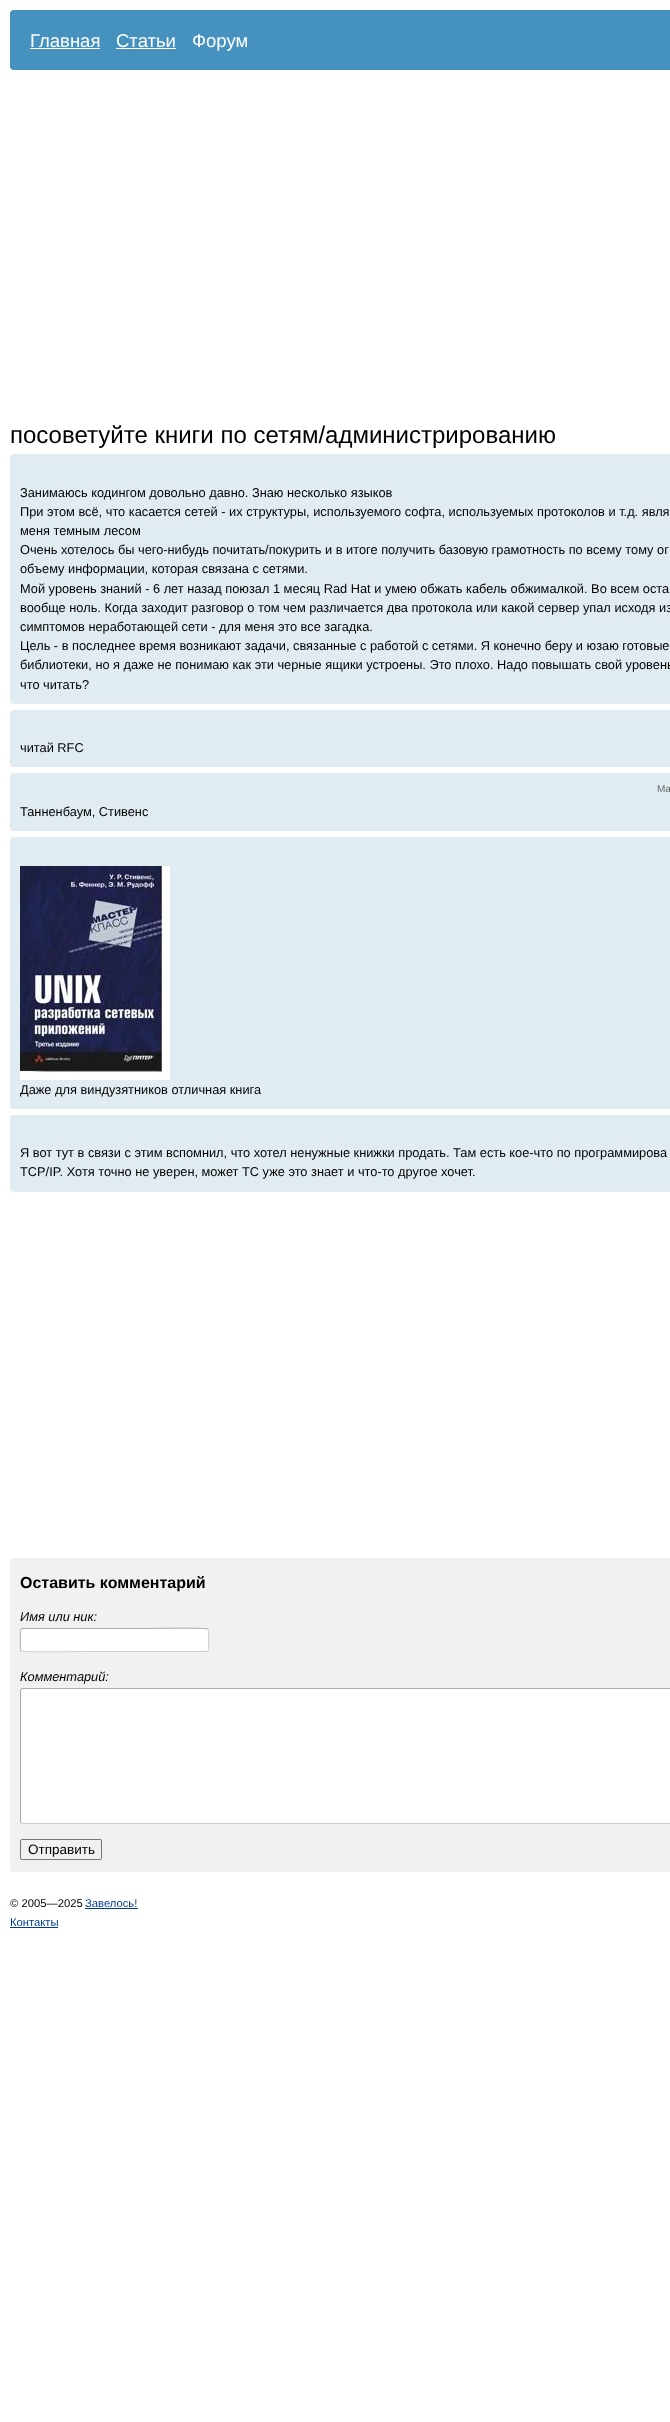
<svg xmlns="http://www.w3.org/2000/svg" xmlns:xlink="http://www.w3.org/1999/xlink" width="670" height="2422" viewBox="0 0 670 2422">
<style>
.cls-1{font:18.5px Liberation Sans;fill:#ffffff}
.cls-2{font:24px Liberation Sans;fill:#000000}
.cls-3{font:12.8px Liberation Sans;fill:#000000}
.cls-4{font:10px Liberation Sans;fill:#666666}
.cls-5{font:bold 16px Liberation Sans;fill:#000000}
.cls-6{font:italic 12.8px Liberation Sans;fill:#000000}
.cls-7{font:13.5px Liberation Sans;fill:#000000}
.cls-8{font:11.25px Liberation Sans;fill:#000000}
.cls-9{font:11.25px Liberation Sans;fill:#013d95}
</style>
<rect width="100%" height="100%" fill="#ffffff"/>
<rect fill="#4692bf" x="10" y="10" width="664" height="60" rx="4"/>
<rect fill="#ffffff" x="30" y="48" width="70" height="1"/>
<rect fill="#ffffff" x="116" y="48" width="60" height="1"/>
<rect fill="#e1ebf2" x="10" y="454" width="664" height="250" rx="4"/>
<rect fill="#e1ebf2" x="10" y="710" width="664" height="57" rx="4"/>
<rect fill="#e1ebf2" x="10" y="773" width="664" height="58" rx="4"/>
<rect fill="#e1ebf2" x="10" y="837" width="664" height="272" rx="4"/>
<image xlink:href="image0.png" x="20" y="866" width="150" height="214"/>
<rect fill="#e1ebf2" x="10" y="1115" width="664" height="77" rx="4"/>
<rect fill="#f1f1f1" x="10" y="1558" width="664" height="314" rx="4"/>
<rect fill="#ffffff" x="20" y="1628" width="189" height="24" rx="3"/>
<path fill="none" stroke="#cccccc" d="M208 1629C209 1630.5 209 1649.5 208 1651L206 1651.5H84C80 1651.5 23 1652.5 21 1651"/>
<path fill="none" stroke="#aaaaaa" d="M21 1651C20 1649.5 20 1630.5 21 1629L23 1628.5H145C149 1628.5 206 1627.5 208 1629"/>
<rect fill="#ffffff" x="20" y="1688" width="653" height="136" rx="3"/>
<path fill="none" stroke="#cccccc" d="M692 1689L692.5 1691V1821L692 1823L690 1823.5H23L21 1823"/>
<path fill="none" stroke="#aaaaaa" d="M21 1823L20.5 1821V1691L21 1689L23 1688.5H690L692 1689"/>
<rect fill="none" stroke="#767676" x="20.5" y="1839.5" width="81" height="20" rx="1.5"/>
<rect fill="#013d95" x="85" y="1908" width="53" height="1"/>
<rect fill="#013d95" x="10" y="1927" width="48" height="1"/>
<text class="cls-1" x="30" y="47">Главная</text>
<text class="cls-1" x="116" y="47">Статьи</text>
<text class="cls-1" x="192" y="47">Форум</text>
<text class="cls-2" x="10" y="443">посоветуйте книги по сетям/администрированию</text>
<text class="cls-3"><tspan x="20" y="497">Занимаюсь кодингом довольно давно. Знаю несколько языков</tspan><tspan x="20" y="516">При этом всё, что касается сетей - их структуры, используемого софта, используемых протоколов и т.д. явля</tspan><tspan x="20" y="535">меня темным лесом</tspan><tspan x="20" y="554">Очень хотелось бы чего-нибудь почитать/покурить и в итоге получить базовую грамотность по всему тому ог</tspan><tspan x="20" y="573">объему информации, которая связана с сетями.</tspan><tspan x="20" y="593">Мой уровень знаний - 6 лет назад поюзал 1 месяц Rad Hat и умею обжать кабель обжималкой. Во всем оста</tspan><tspan x="20" y="612">вообще ноль. Когда заходит разговор о том чем различается два протокола или какой сервер упал исходя из</tspan><tspan x="20" y="631">симптомов неработающей сети - для меня это все загадка.</tspan><tspan x="20" y="650">Цель - в последнее время возникают задачи, связанные с работой с сетями. Я конечно беру и юзаю готовые</tspan><tspan x="20" y="669">библиотеки, но я даже не понимаю как эти черные ящики устроены. Это плохо. Надо повышать свой уровень</tspan><tspan x="20" y="689">что читать?</tspan></text>
<text class="cls-3" x="20" y="752">читай RFC</text>
<text class="cls-4" x="657" y="792">Ma</text>
<text class="cls-3" x="20" y="816">Танненбаум, Стивенс</text>
<text class="cls-3" x="20" y="1094">Даже для виндузятников отличная книга</text>
<text class="cls-3"><tspan x="20" y="1157">Я вот тут в связи с этим вспомнил, что хотел ненужные книжки продать. Там есть кое-что по программирова</tspan><tspan x="20" y="1176">TCP/IP. Хотя точно не уверен, может ТС уже это знает и что-то другое хочет.</tspan></text>
<text class="cls-5" x="20" y="1588">Оставить комментарий</text>
<text class="cls-6" x="20" y="1621">Имя или ник:</text>
<text class="cls-6" x="20" y="1681">Комментарий:</text>
<text class="cls-7" x="28" y="1854">Отправить</text>
<text class="cls-8" x="10" y="1907">© 2005—2025</text>
<text class="cls-9" x="85" y="1907">Завелось!</text>
<text class="cls-9" x="10" y="1926">Контакты</text>
</svg>
